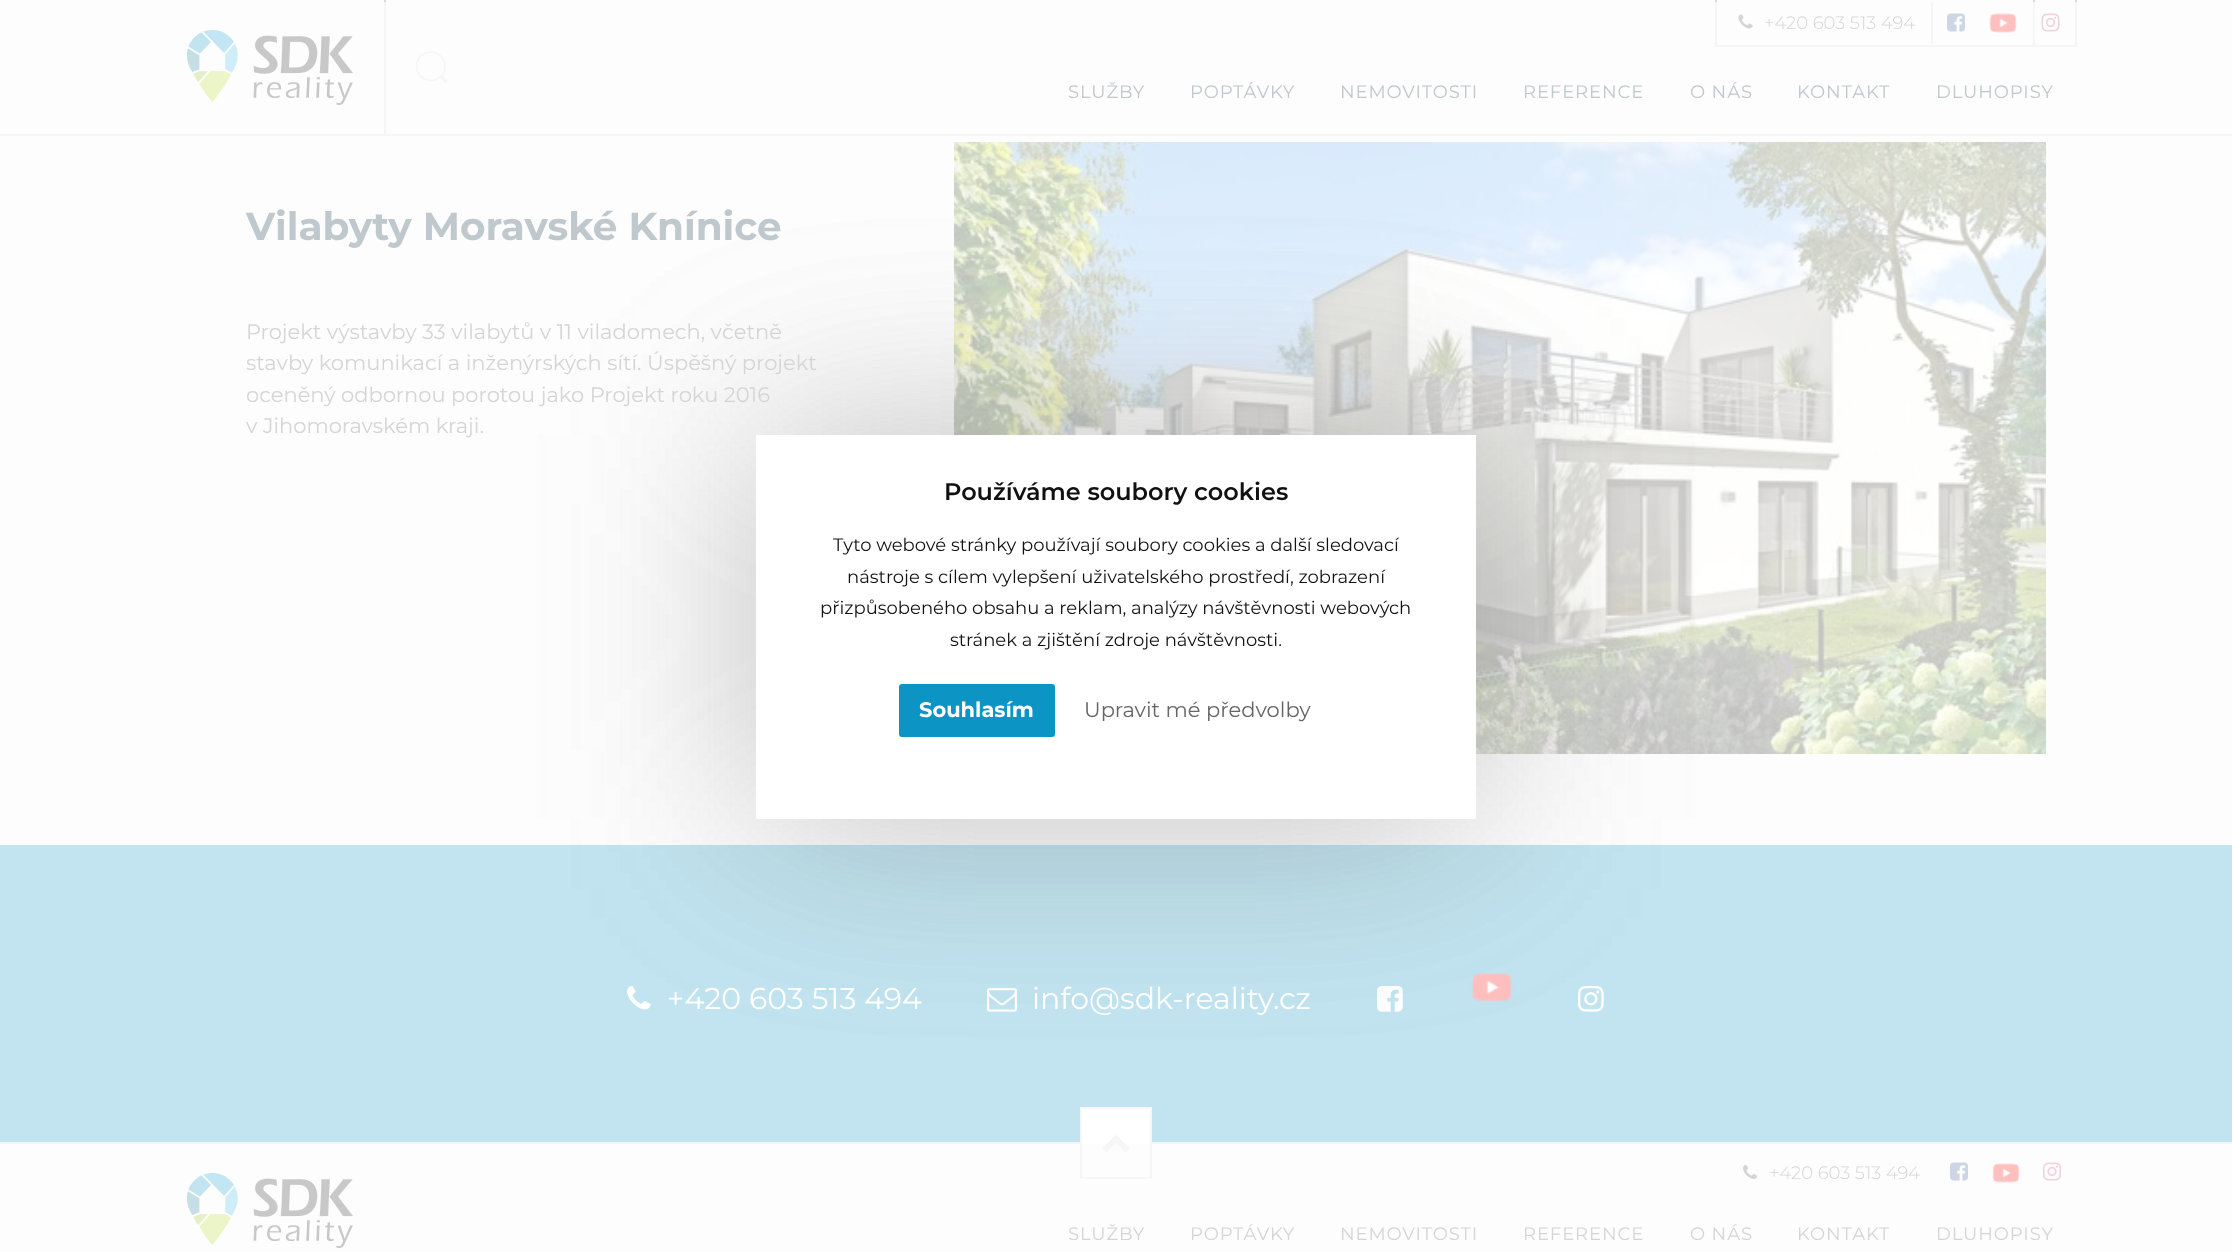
<svg xmlns="http://www.w3.org/2000/svg" xmlns:xlink="http://www.w3.org/1999/xlink" width="2232" height="1252" viewBox="0 0 2232 1252">
<style>
.cls-1{font:300 18px Montserrat;fill:#d5d5d5}
.cls-2{font:18px Montserrat;letter-spacing:0.9px;fill:#bfc8cd}
.cls-3{font:bold 39px Montserrat;fill:#bfc8cd}
.cls-4{font:21px Montserrat;fill:#d5d5d5}
.cls-5{font:600 24px Montserrat;fill:#111111}
.cls-6{font:18px Montserrat;fill:#111111}
.cls-7{font:bold 21px Montserrat;fill:#ffffff}
.cls-8{font:21px Montserrat;fill:#666666}
.cls-9{font:30px Montserrat;fill:#ffffff}
.cls-10{font:18px Montserrat;letter-spacing:0.9px;fill:#d5d5d5}
</style>
<defs>
<clipPath id="clip1"><path d="M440 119H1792V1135H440ZM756 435H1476V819H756Z" clip-rule="evenodd"/></clipPath>
</defs>
<rect width="100%" height="100%" fill="#fdfdfd"/>
<rect fill="#d9d9d9" x="384" y="0" width="2" height="2"/>
<rect fill="#f6f6f6" x="384" y="2" width="2" height="133"/>
<image xlink:href="image0.png" x="416" y="51" width="32" height="33"/>
<rect fill="#d9d9d9" x="2075" y="0" width="2" height="2"/>
<rect fill="#f6f6f6" x="2075" y="2" width="2" height="45"/>
<rect fill="#f6f6f6" x="1715" y="45" width="361" height="2"/>
<rect fill="#d9d9d9" x="1715" y="0" width="2" height="2"/>
<rect fill="#f6f6f6" x="1715" y="2" width="2" height="45"/>
<rect fill="#f6f6f6" x="1931" y="2" width="2" height="42"/>
<image xlink:href="image1.png" x="1738" y="14" width="15" height="15"/>
<image xlink:href="image2.png" x="1947" y="13" width="18" height="19"/>
<rect fill="#d9d9d9" x="2033" y="0" width="2" height="2"/>
<rect fill="#f6f6f6" x="2033" y="2" width="2" height="43"/>
<image xlink:href="image3.png" x="1989" y="13" width="28" height="20"/>
<image xlink:href="image4.png" x="2041" y="13" width="19" height="19"/>
<image xlink:href="image5.png" x="186" y="30" width="167" height="75"/>
<rect fill="#f6f6f6" x="0" y="134" width="2232" height="2"/>
<image xlink:href="image6.png" x="954" y="142" width="1092" height="612"/>
<rect fill="#c2e4f0" x="0" y="845" width="2232" height="297"/>
<image xlink:href="image7.png" x="627" y="986" width="24" height="24"/>
<image xlink:href="image8.png" x="987" y="988" width="30" height="24"/>
<image xlink:href="image9.png" x="1377" y="985" width="26" height="27"/>
<image xlink:href="image10.png" x="1471" y="972" width="42" height="30"/>
<image xlink:href="image11.png" x="1578" y="985" width="26" height="27"/>
<rect fill="#f6f6f6" x="0" y="1142" width="2232" height="2"/>
<rect fill="#ffffff" x="1082" y="1109" width="68" height="35"/>
<rect fill="none" stroke="#f6f6f6" stroke-width="2" x="1081" y="1108" width="70" height="70"/>
<rect fill="#bfbfbf" fill-opacity="0.2" filter="blur(105px)" x="756" y="435" width="720" height="384"/>
<rect fill="#ffffff" x="756" y="435" width="720" height="384"/>
<g clip-path="url(#clip1)">
<rect fill="#000000" fill-opacity="0.2" filter="blur(105px)" x="756" y="435" width="720" height="384"/>
</g>
<rect fill="#0b94c4" x="899" y="684" width="156" height="53" rx="3"/>
<image xlink:href="image12.png" x="1102" y="1135" width="28" height="18"/>
<image xlink:href="image5.png" x="186" y="1173" width="167" height="75"/>
<image xlink:href="image13.png" x="1743" y="1164" width="15" height="15"/>
<image xlink:href="image2.png" x="1950" y="1162" width="18" height="19"/>
<image xlink:href="image3.png" x="1992" y="1163" width="28" height="20"/>
<image xlink:href="image14.png" x="2043" y="1162" width="18" height="19"/>
<text class="cls-1" x="1764" y="29">+420 603 513 494</text>
<text class="cls-2" x="1068" y="98">SLUŽBY</text>
<text class="cls-2" x="1190" y="98">POPTÁVKY</text>
<text class="cls-2" x="1340" y="98">NEMOVITOSTI</text>
<text class="cls-2" x="1523" y="98">REFERENCE</text>
<text class="cls-2" x="1690" y="98">O NÁS</text>
<text class="cls-2" x="1797" y="98">KONTAKT</text>
<text class="cls-2" x="1936" y="98">DLUHOPISY</text>
<text class="cls-3" x="246" y="240">Vilabyty Moravské Knínice</text>
<text class="cls-4"><tspan x="246" y="339">Projekt výstavby 33 vilabytů v 11 viladomech, včetně</tspan><tspan x="246" y="370">stavby komunikací a inženýrských sítí. Úspěšný projekt</tspan><tspan x="246" y="402">oceněný odbornou porotou jako Projekt roku 2016</tspan><tspan x="246" y="433">v Jihomoravském kraji.</tspan></text>
<text class="cls-5" x="944" y="500">Používáme soubory cookies</text>
<text class="cls-6" x="833" y="551">Tyto webové stránky používají soubory cookies a další sledovací</text>
<text class="cls-6" x="847" y="583">nástroje s cílem vylepšení uživatelského prostředí, zobrazení</text>
<text class="cls-6" x="820" y="614">přizpůsobeného obsahu a reklam, analýzy návštěvnosti webových</text>
<text class="cls-6" x="950" y="646">stránek a zjištění zdroje návštěvnosti.</text>
<text class="cls-7" x="919" y="717">Souhlasím</text>
<text class="cls-8" x="1084" y="717">Upravit mé předvolby</text>
<text class="cls-9" x="667" y="1009">+420 603 513 494</text>
<text class="cls-9" x="1032" y="1009">info@sdk-reality.cz</text>
<text class="cls-1" x="1769" y="1179">+420 603 513 494</text>
<text class="cls-10" x="1068" y="1240">SLUŽBY</text>
<text class="cls-10" x="1190" y="1240">POPTÁVKY</text>
<text class="cls-10" x="1340" y="1240">NEMOVITOSTI</text>
<text class="cls-10" x="1523" y="1240">REFERENCE</text>
<text class="cls-10" x="1690" y="1240">O NÁS</text>
<text class="cls-10" x="1797" y="1240">KONTAKT</text>
<text class="cls-10" x="1936" y="1240">DLUHOPISY</text>
</svg>
